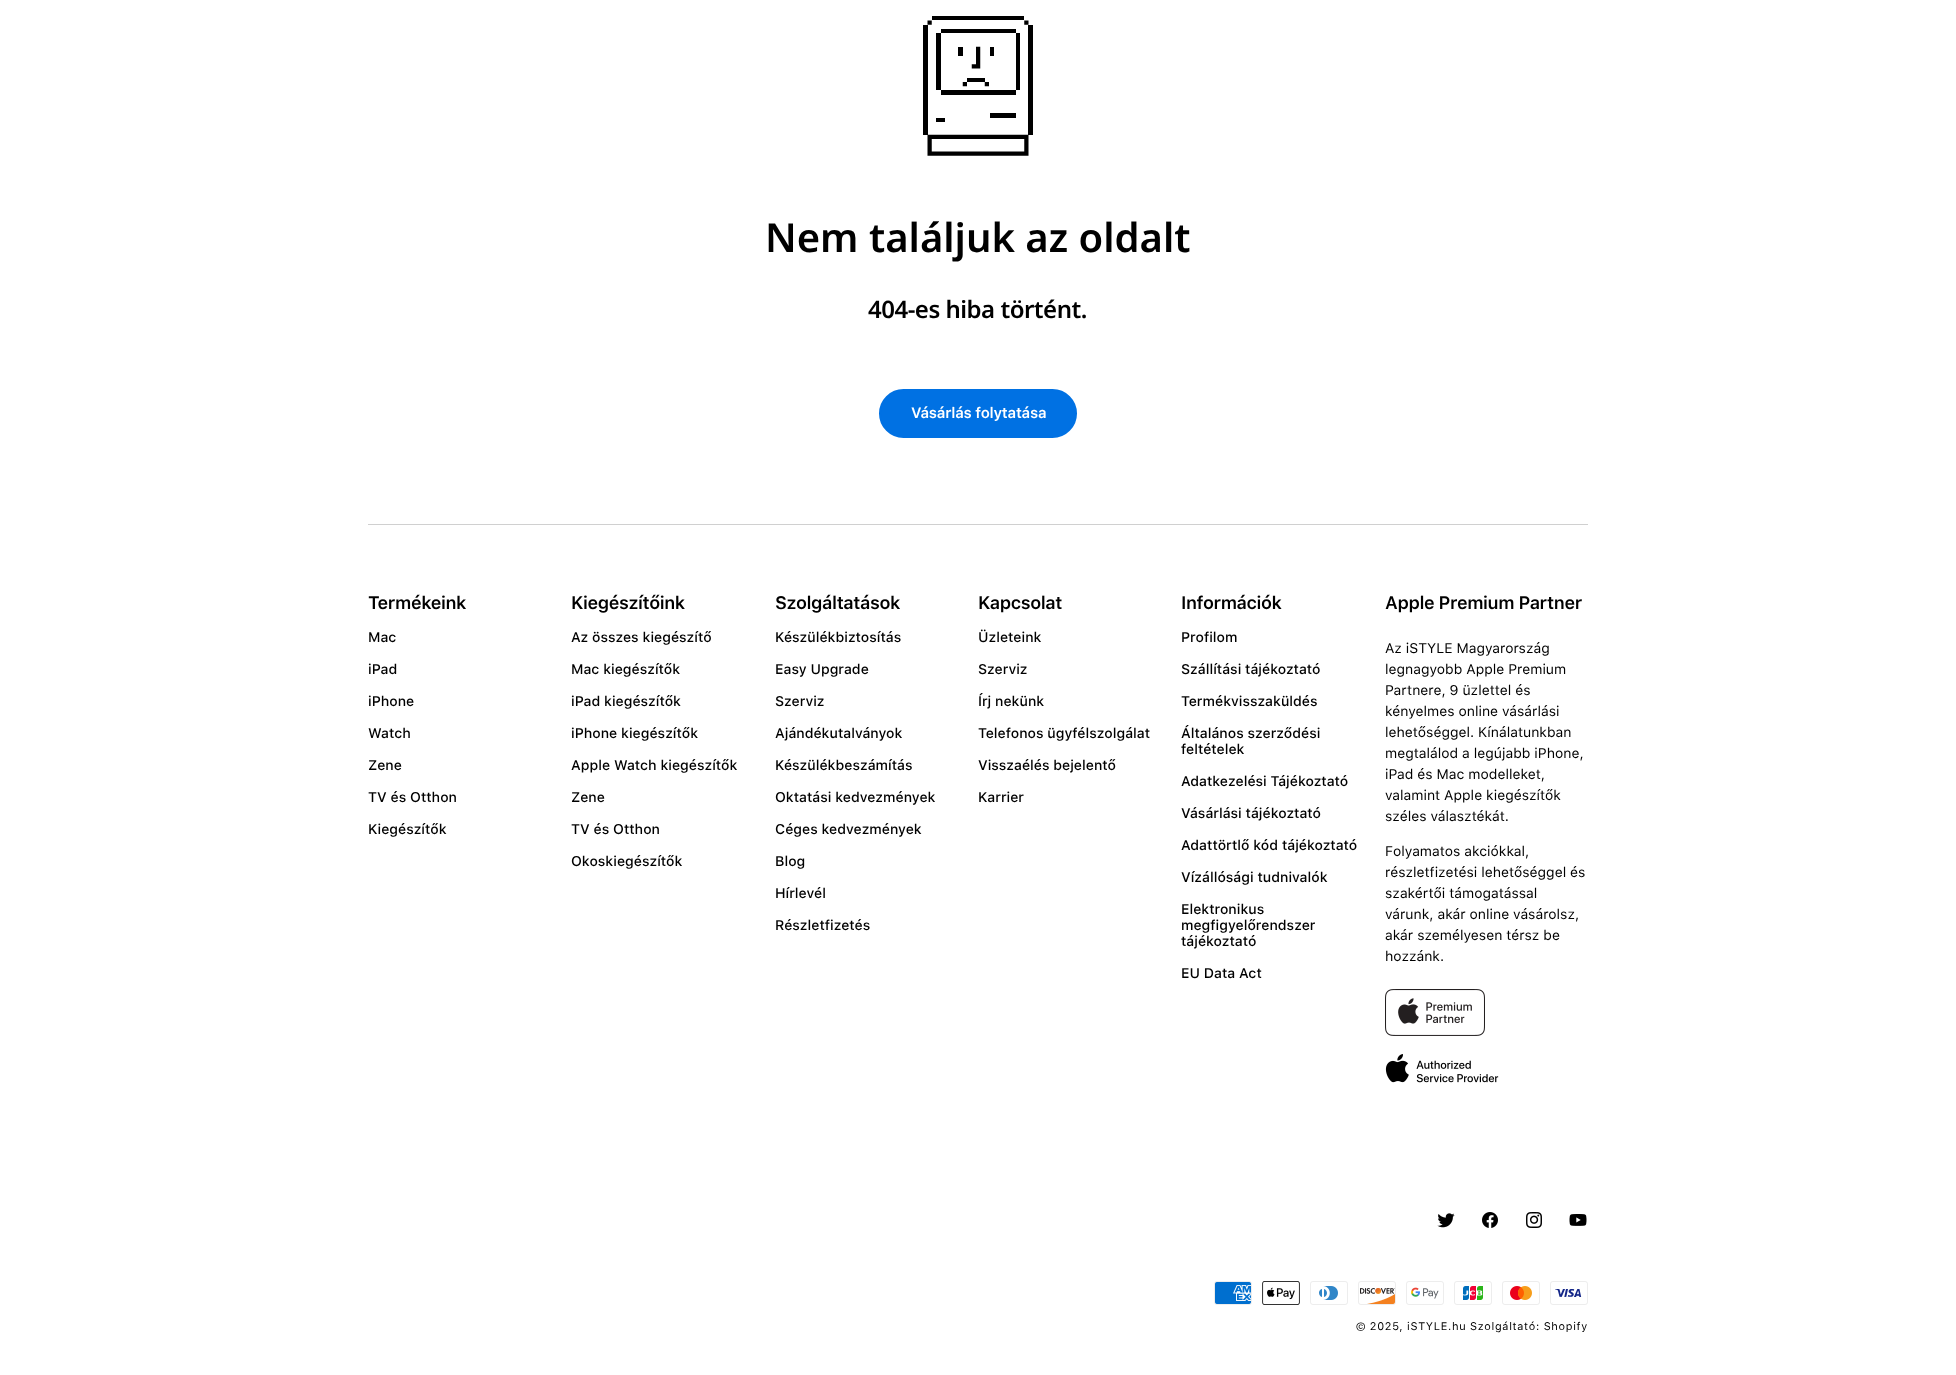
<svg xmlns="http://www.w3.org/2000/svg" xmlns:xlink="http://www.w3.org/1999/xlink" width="1956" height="1375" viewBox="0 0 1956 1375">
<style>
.cls-1{font:600 40px Noto Sans;fill:#000000}
.cls-2{font:600 24px Noto Sans;letter-spacing:-0.5px;fill:#000000}
.cls-3{font:600 15px SF Pro Text;letter-spacing:-0.25px;fill:#ffffff}
.cls-4{font:600 18px SF Pro Text;letter-spacing:-0.4px;fill:#000000}
.cls-5{font:500 14px SF Pro Text;fill:#000000}
.cls-6{font:14px SF Pro Text;fill:#000000}
.cls-7{font:11px SF Pro Text;letter-spacing:0.7px;fill:#000000}
</style>
<rect width="100%" height="100%" fill="#ffffff"/>
<image xlink:href="image0.png" x="923" y="16" width="110" height="140"/>
<rect fill="#0071e3" stroke="#0071e3" stroke-width="2" x="880" y="390" width="196" height="47" rx="23.5"/>
<rect fill="#d0d0d0" x="368" y="524" width="1220" height="1"/>
<image xlink:href="image1.png" x="1385" y="989" width="100" height="47"/>
<image xlink:href="image2.png" x="1385" y="1054" width="114" height="29"/>
<image xlink:href="image3.png" x="1437" y="1213" width="18" height="15"/>
<image xlink:href="image4.png" x="1482" y="1212" width="16" height="16"/>
<image xlink:href="image5.png" x="1526" y="1212" width="16" height="16"/>
<image xlink:href="image6.png" x="1569" y="1214" width="18" height="12"/>
<image xlink:href="image7.png" x="1214" y="1281" width="38" height="24"/>
<image xlink:href="image8.png" x="1262" y="1281" width="38" height="24"/>
<image xlink:href="image9.png" x="1310" y="1281" width="38" height="24"/>
<image xlink:href="image10.png" x="1358" y="1281" width="38" height="24"/>
<image xlink:href="image11.png" x="1406" y="1281" width="38" height="24"/>
<image xlink:href="image12.png" x="1454" y="1281" width="38" height="24"/>
<image xlink:href="image13.png" x="1502" y="1281" width="38" height="24"/>
<image xlink:href="image14.png" x="1550" y="1281" width="38" height="24"/>
<text class="cls-1" x="765" y="252">Nem találjuk az oldalt</text>
<text class="cls-2" x="868" y="318">404-es hiba történt.</text>
<text class="cls-3" x="911" y="418">Vásárlás folytatása</text>
<text class="cls-4" x="368" y="609">Termékeink</text>
<text class="cls-5" x="368" y="642">Mac</text>
<text class="cls-5" x="368" y="674">iPad</text>
<text class="cls-5" x="368" y="706">iPhone</text>
<text class="cls-5" x="368" y="738">Watch</text>
<text class="cls-5" x="368" y="770">Zene</text>
<text class="cls-5" x="368" y="802">TV és Otthon</text>
<text class="cls-5" x="368" y="834">Kiegészítők</text>
<text class="cls-4" x="571" y="609">Kiegészítőink</text>
<text class="cls-5" x="571" y="642">Az összes kiegészítő</text>
<text class="cls-5" x="571" y="674">Mac kiegészítők</text>
<text class="cls-5" x="571" y="706">iPad kiegészítők</text>
<text class="cls-5" x="571" y="738">iPhone kiegészítők</text>
<text class="cls-5" x="571" y="770">Apple Watch kiegészítők</text>
<text class="cls-5" x="571" y="802">Zene</text>
<text class="cls-5" x="571" y="834">TV és Otthon</text>
<text class="cls-5" x="571" y="866">Okoskiegészítők</text>
<text class="cls-4" x="775" y="609">Szolgáltatások</text>
<text class="cls-5" x="775" y="642">Készülékbiztosítás</text>
<text class="cls-5" x="775" y="674">Easy Upgrade</text>
<text class="cls-5" x="775" y="706">Szerviz</text>
<text class="cls-5" x="775" y="738">Ajándékutalványok</text>
<text class="cls-5" x="775" y="770">Készülékbeszámítás</text>
<text class="cls-5" x="775" y="802">Oktatási kedvezmények</text>
<text class="cls-5" x="775" y="834">Céges kedvezmények</text>
<text class="cls-5" x="775" y="866">Blog</text>
<text class="cls-5" x="775" y="898">Hírlevél</text>
<text class="cls-5" x="775" y="930">Részletfizetés</text>
<text class="cls-4" x="978" y="609">Kapcsolat</text>
<text class="cls-5" x="978" y="642">Üzleteink</text>
<text class="cls-5" x="978" y="674">Szerviz</text>
<text class="cls-5" x="978" y="706">Írj nekünk</text>
<text class="cls-5" x="978" y="738">Telefonos ügyfélszolgálat</text>
<text class="cls-5" x="978" y="770">Visszaélés bejelentő</text>
<text class="cls-5" x="978" y="802">Karrier</text>
<text class="cls-4" x="1181" y="609">Információk</text>
<text class="cls-5" x="1181" y="642">Profilom</text>
<text class="cls-5" x="1181" y="674">Szállítási tájékoztató</text>
<text class="cls-5" x="1181" y="706">Termékvisszaküldés</text>
<text class="cls-5"><tspan x="1181" y="738">Általános szerződési</tspan><tspan x="1181" y="754">feltételek</tspan></text>
<text class="cls-5" x="1181" y="786">Adatkezelési Tájékoztató</text>
<text class="cls-5" x="1181" y="818">Vásárlási tájékoztató</text>
<text class="cls-5" x="1181" y="850">Adattörtlő kód tájékoztató</text>
<text class="cls-5" x="1181" y="882">Vízállósági tudnivalók</text>
<text class="cls-5"><tspan x="1181" y="914">Elektronikus</tspan><tspan x="1181" y="930">megfigyelőrendszer</tspan><tspan x="1181" y="946">tájékoztató</tspan></text>
<text class="cls-5" x="1181" y="978">EU Data Act</text>
<text class="cls-4" x="1385" y="609">Apple Premium Partner</text>
<text class="cls-6"><tspan x="1385" y="653">Az iSTYLE Magyarország</tspan><tspan x="1385" y="674">legnagyobb Apple Premium</tspan><tspan x="1385" y="695">Partnere, 9 üzlettel és</tspan><tspan x="1385" y="716">kényelmes online vásárlási</tspan><tspan x="1385" y="737">lehetőséggel. Kínálatunkban</tspan><tspan x="1385" y="758">megtalálod a legújabb iPhone,</tspan><tspan x="1385" y="779">iPad és Mac modelleket,</tspan><tspan x="1385" y="800">valamint Apple kiegészítők</tspan><tspan x="1385" y="821">széles választékát.</tspan></text>
<text class="cls-6"><tspan x="1385" y="856">Folyamatos akciókkal,</tspan><tspan x="1385" y="877">részletfizetési lehetőséggel és</tspan><tspan x="1385" y="898">szakértői támogatással</tspan><tspan x="1385" y="919">várunk, akár online vásárolsz,</tspan><tspan x="1385" y="940">akár személyesen térsz be</tspan><tspan x="1385" y="961">hozzánk.</tspan></text>
<text class="cls-7" x="1356" y="1330">© 2025, iSTYLE.hu Szolgáltató: Shopify</text>
</svg>
